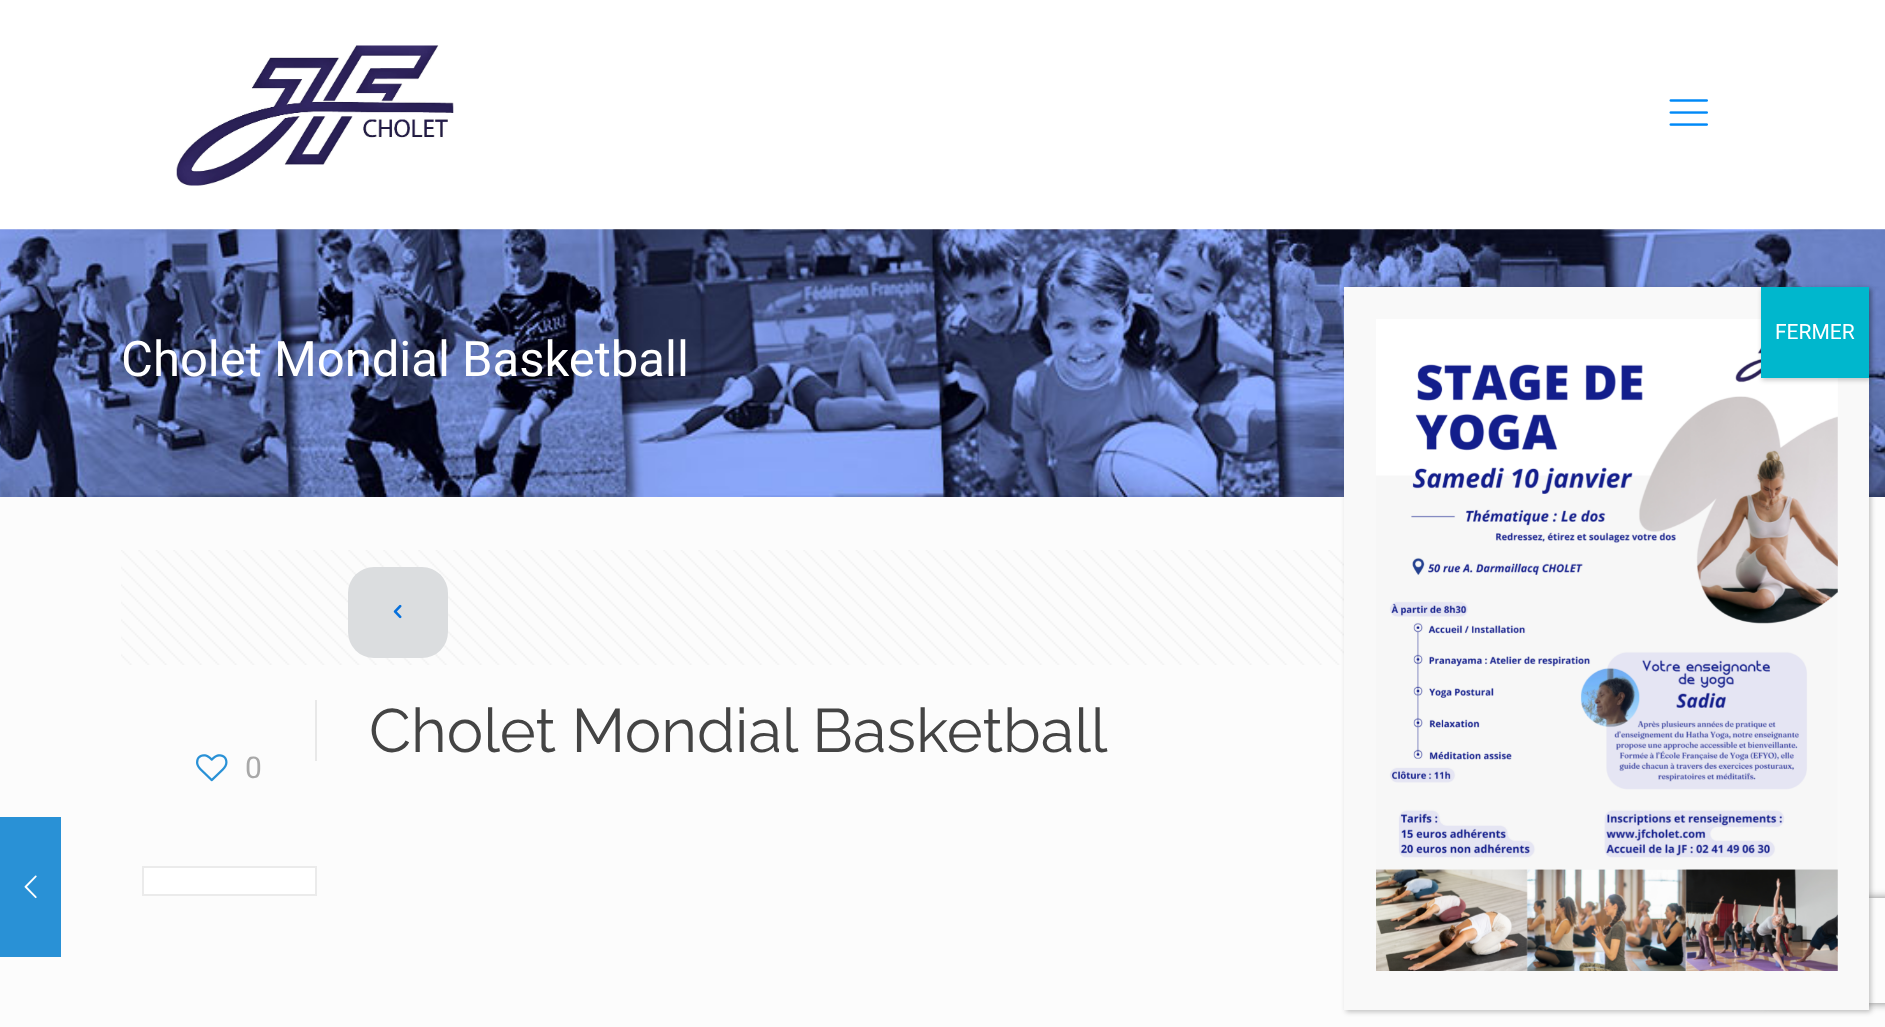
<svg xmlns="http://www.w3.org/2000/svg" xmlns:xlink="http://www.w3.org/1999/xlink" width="1885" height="1027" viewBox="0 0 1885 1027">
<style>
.cls-1{font:21px Roboto;fill:#ffffff}
.cls-2{font:49px Roboto;fill:#ffffff}
.cls-3{font:100 61.25px Raleway;fill:#444444}
.cls-4{font:30px Roboto;fill:#a8a8a8}
</style>
<defs>
<clipPath id="clip1"><path d="M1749 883H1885V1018H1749ZM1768 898H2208C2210 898 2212 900 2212 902V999C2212 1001 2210 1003 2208 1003H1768C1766 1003 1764 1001 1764 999V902C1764 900 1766 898 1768 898Z" clip-rule="evenodd"/></clipPath>
</defs>
<rect width="100%" height="100%" fill="#fcfcfc"/>
<image xlink:href="image3.png" x="0" y="229" width="1885" height="268"/>
<image xlink:href="image4.png" x="121" y="550" width="1223" height="115"/>
<rect fill="#020202" fill-opacity="0.23" filter="blur(2.5px)" x="1346" y="289" width="525" height="723"/>
<g clip-path="url(#clip1)">
<rect fill="#808080" filter="blur(4.5px)" x="1764" y="898" width="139" height="105" rx="4"/>
</g>
<rect fill="#f9f9f9" x="1344" y="287" width="525" height="723"/>
<image xlink:href="image0.png" x="1376" y="319" width="462" height="652"/>
<rect fill="#020202" fill-opacity="0.23" filter="blur(2.5px)" x="1762" y="289" width="109" height="91"/>
<rect fill="#00b7cd" x="1761" y="287" width="108" height="91"/>
<rect fill="#ffffff" x="0" y="0" width="1885" height="229"/>
<image xlink:href="image1.png" x="176" y="45" width="278" height="141"/>
<image xlink:href="image2.png" x="1669" y="99" width="39" height="27"/>
<rect fill="#dbdddf" x="348" y="567" width="100" height="91" rx="26"/>
<image xlink:href="image5.png" x="393" y="604" width="9" height="15"/>
<rect fill="#e8e8e8" x="315" y="700" width="2" height="61"/>
<image xlink:href="image6.png" x="196" y="754" width="32" height="28"/>
<rect fill="#ffffff" stroke="#ebebeb" stroke-width="2" x="143" y="867" width="173" height="28"/>
<rect fill="#2991d6" x="0" y="817" width="61" height="140"/>
<image xlink:href="image7.png" x="24" y="875" width="13" height="24"/>
<text class="cls-1" x="1775" y="339">FERMER</text>
<text class="cls-2" x="121" y="376">Cholet Mondial Basketball</text>
<text class="cls-3" x="369" y="752">Cholet Mondial Basketball</text>
<text class="cls-4" x="245" y="778">0</text>
</svg>
